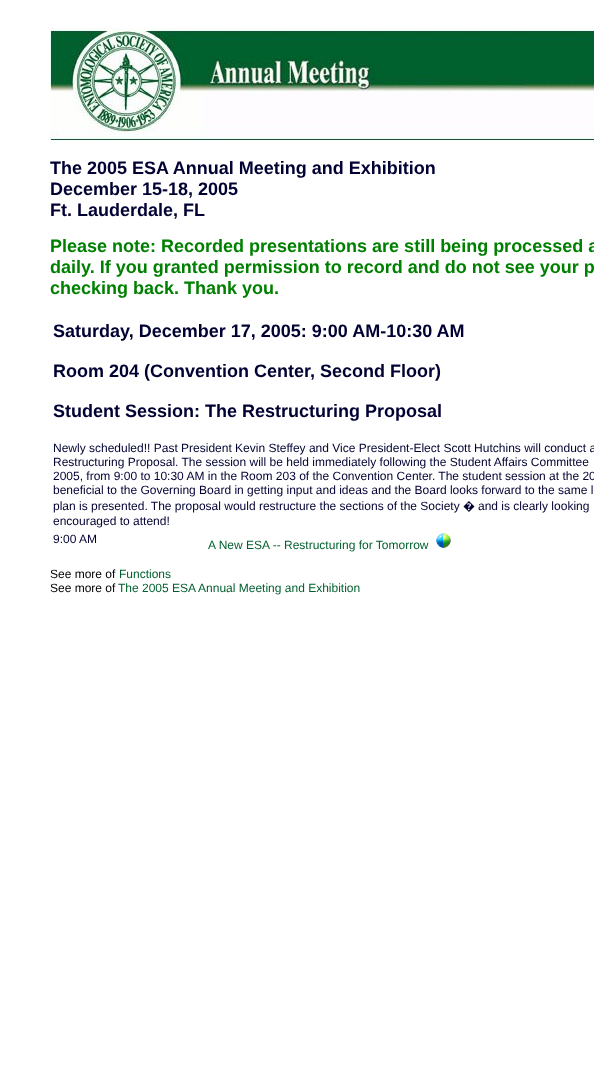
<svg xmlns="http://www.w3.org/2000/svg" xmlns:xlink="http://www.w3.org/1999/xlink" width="594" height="1082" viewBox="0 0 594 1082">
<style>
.cls-1{font:bold 18px Liberation Sans;fill:#000033}
.cls-2{font:bold 18px Liberation Sans;fill:#008000}
.cls-3{font:12px Liberation Sans;fill:#000033}
.cls-4{font:12px Noto Sans;fill:#000033}
.cls-5{font:12px Liberation Sans;fill:#015f2d}
.cls-6{font:12px Liberation Sans;fill:#000000}
</style>
<rect width="100%" height="100%" fill="#ffffff"/>
<image xlink:href="image0.png" x="50" y="28" width="544" height="113"/>
<image xlink:href="image1.png" x="436" y="533" width="15" height="15"/>
<text class="cls-1"><tspan x="50" y="174">The 2005 ESA Annual Meeting and Exhibition</tspan><tspan x="50" y="195">December 15-18, 2005</tspan><tspan x="50" y="216">Ft. Lauderdale, FL</tspan></text>
<text class="cls-2"><tspan x="50" y="252">Please note: Recorded presentations are still being processed a</tspan><tspan x="50" y="273">daily. If you granted permission to record and do not see your p</tspan><tspan x="50" y="294">checking back. Thank you.</tspan></text>
<text class="cls-1" x="53" y="337">Saturday, December 17, 2005: 9:00 AM-10:30 AM</text>
<text class="cls-1" x="53" y="377">Room 204 (Convention Center, Second Floor)</text>
<text class="cls-1" x="53" y="417">Student Session: The Restructuring Proposal</text>
<text class="cls-3"><tspan x="53" y="452">Newly scheduled!! Past President Kevin Steffey and Vice President-Elect Scott Hutchins will conduct a</tspan><tspan x="53" y="466">Restructuring Proposal. The session will be held immediately following the Student Affairs Committee</tspan><tspan x="53" y="480">2005, from 9:00 to 10:30 AM in the Room 203 of the Convention Center. The student session at the 20</tspan><tspan x="53" y="494">beneficial to the Governing Board in getting input and ideas and the Board looks forward to the same l</tspan><tspan x="53" y="510">plan is presented. The proposal would restructure the sections of the Society</tspan></text>
<text class="cls-4" x="463" y="510">�</text>
<text class="cls-3" x="478" y="510">and is clearly looking</text>
<text class="cls-3"><tspan x="53" y="525">encouraged to attend!</tspan><tspan x="53" y="543">9:00 AM</tspan></text>
<text class="cls-5" x="208" y="549">A New ESA -- Restructuring for Tomorrow</text>
<text class="cls-6" x="50" y="578">See more of</text>
<text class="cls-5" x="119" y="578">Functions</text>
<text class="cls-6" x="50" y="592">See more of</text>
<text class="cls-5" x="118" y="592">The 2005 ESA Annual Meeting and Exhibition</text>
</svg>
